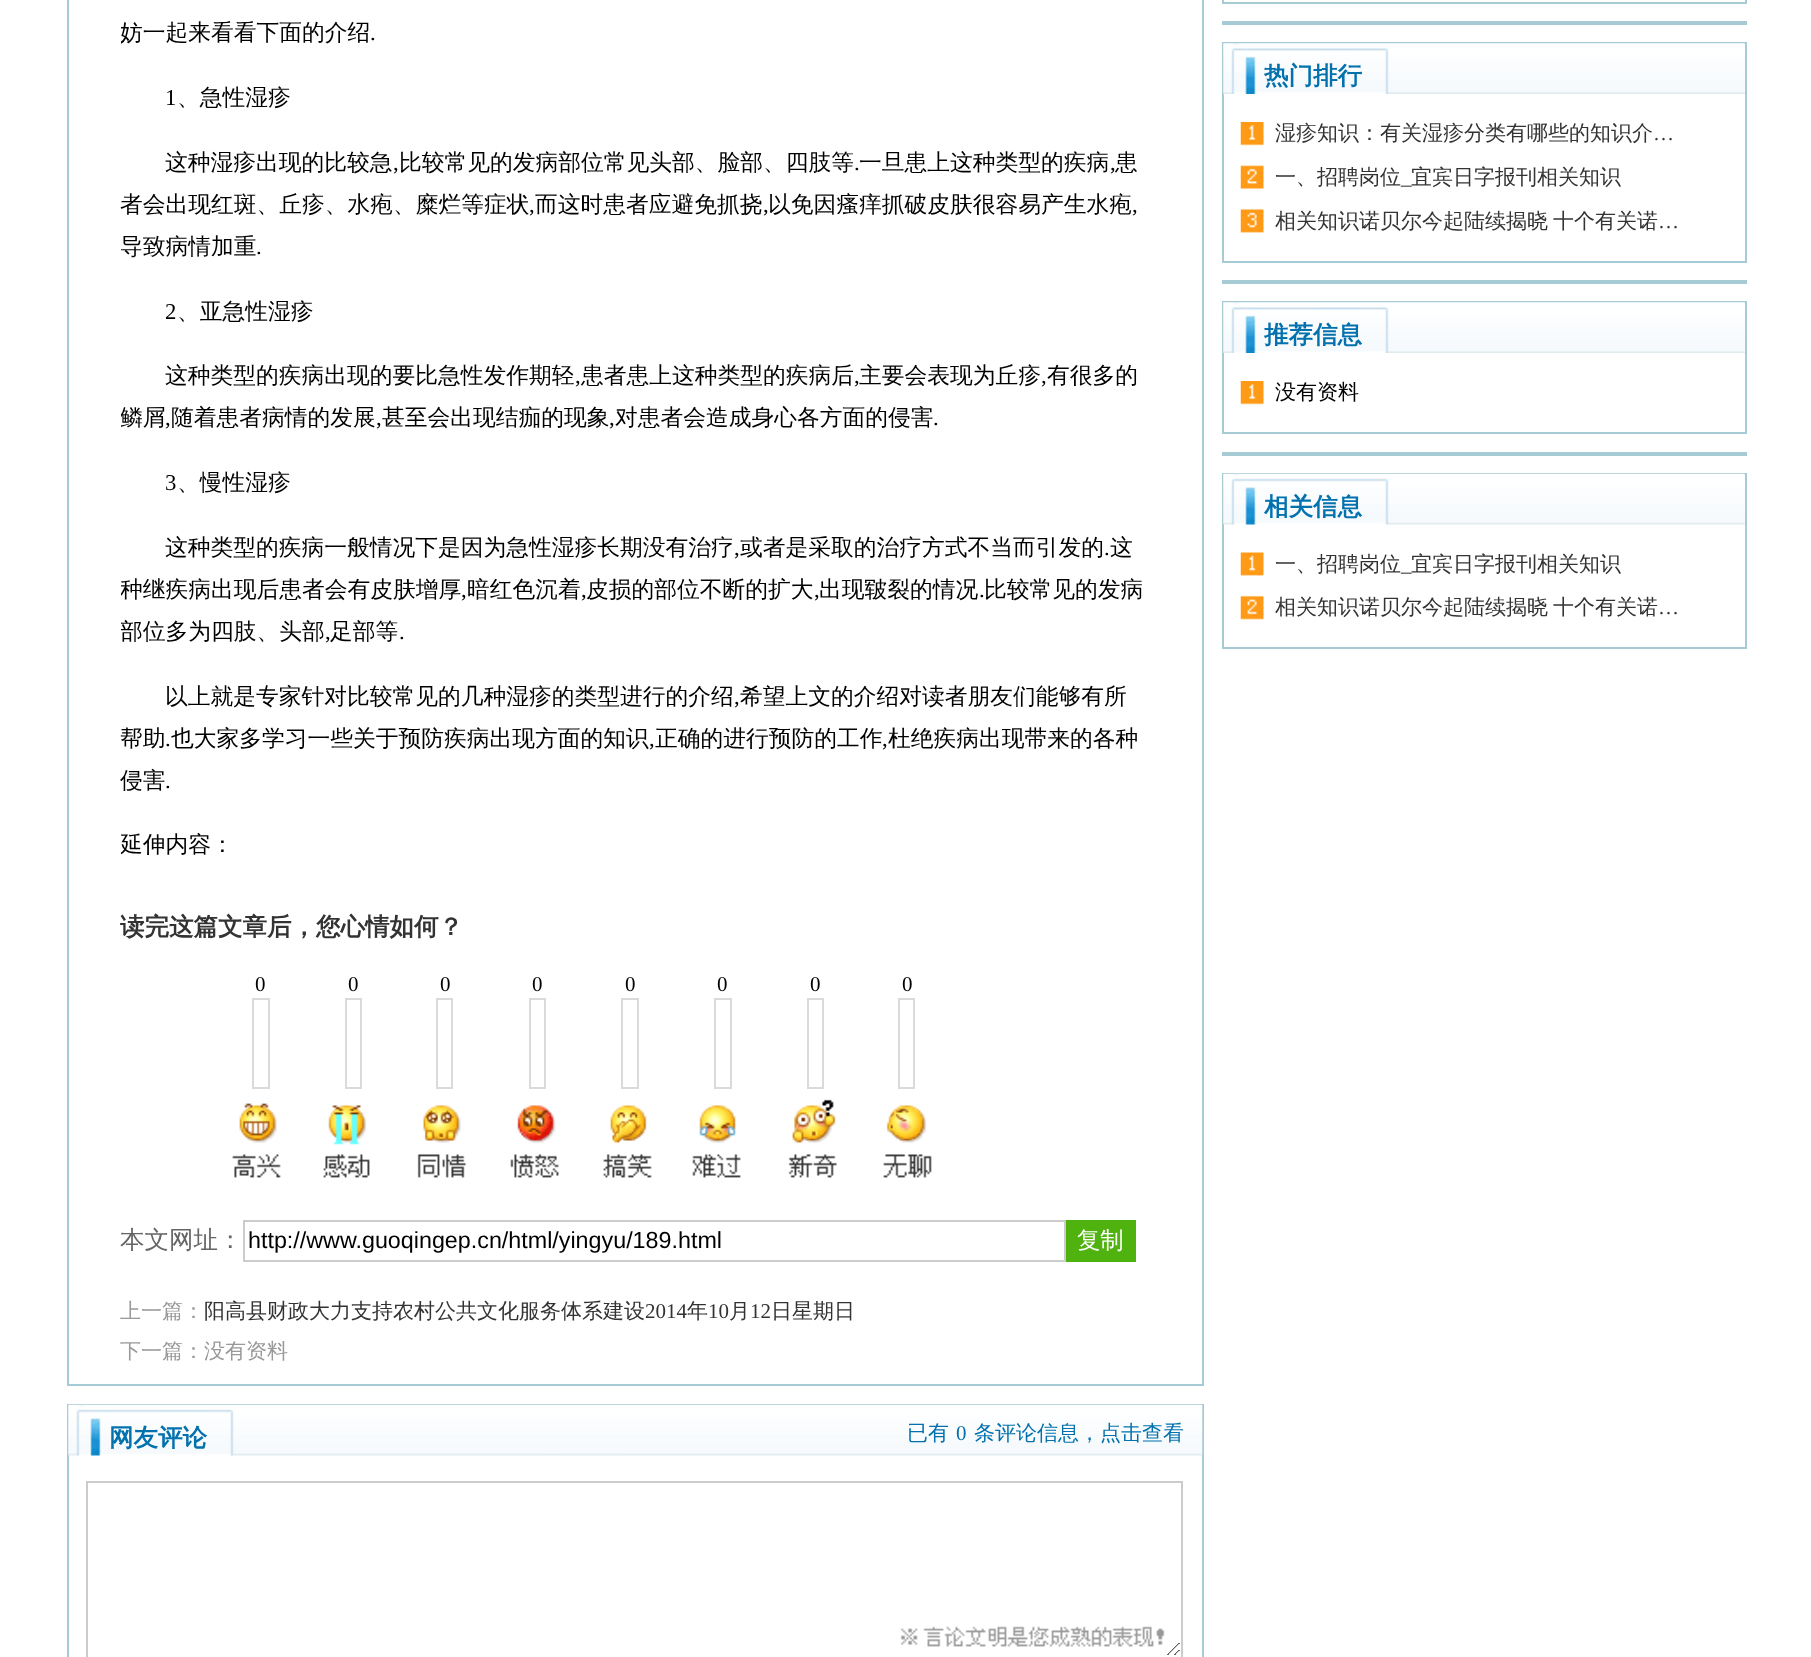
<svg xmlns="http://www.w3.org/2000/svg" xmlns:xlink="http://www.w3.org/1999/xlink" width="1811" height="1657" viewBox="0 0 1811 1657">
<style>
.cls-1{font:500 22.75px WenQuanYi Zen Hei;fill:#000000}
.cls-2{font:22.75px Liberation Serif;fill:#000000}
.cls-3{font:bold 24.5px WenQuanYi Zen Hei;fill:#333333}
.cls-4{font:21px Liberation Serif;fill:#000000}
.cls-5{font:500 24.5px WenQuanYi Zen Hei;fill:#666666}
.cls-6{font:23.3px Liberation Sans;fill:#000000}
.cls-7{font:500 23.3px WenQuanYi Zen Hei;fill:#ffffff}
.cls-8{font:500 21px WenQuanYi Zen Hei;fill:#999999}
.cls-9{font:500 21px WenQuanYi Zen Hei;fill:#333333}
.cls-10{font:21px Liberation Serif;fill:#333333}
.cls-11{font:bold 24.5px WenQuanYi Zen Hei;fill:#0271ad}
.cls-12{font:500 21px WenQuanYi Zen Hei;fill:#0271ad}
.cls-13{font:21px Liberation Serif;fill:#0271ad}
.cls-14{font:500 21px WenQuanYi Zen Hei;fill:#000000}
</style>
<defs>
<clipPath id="clip1"><rect x="121" y="0" width="1029" height="866"/></clipPath>
</defs>
<rect width="100%" height="100%" fill="#ffffff"/>
<rect fill="none" stroke="#a6cbd5" stroke-width="2" x="68" y="-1" width="1135" height="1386"/>
<rect fill="none" stroke="#dadada" stroke-width="2" x="253" y="999" width="16" height="89"/>
<image xlink:href="image0.png" x="232" y="1103" width="49" height="75"/>
<rect fill="none" stroke="#dadada" stroke-width="2" x="346" y="999" width="15" height="89"/>
<image xlink:href="image1.png" x="323" y="1105" width="47" height="73"/>
<rect fill="none" stroke="#dadada" stroke-width="2" x="437" y="999" width="15" height="89"/>
<image xlink:href="image2.png" x="417" y="1105" width="49" height="73"/>
<rect fill="none" stroke="#dadada" stroke-width="2" x="530" y="999" width="15" height="89"/>
<image xlink:href="image3.png" x="510" y="1105" width="49" height="73"/>
<rect fill="none" stroke="#dadada" stroke-width="2" x="622" y="999" width="16" height="89"/>
<image xlink:href="image4.png" x="603" y="1105" width="49" height="73"/>
<rect fill="none" stroke="#dadada" stroke-width="2" x="715" y="999" width="16" height="89"/>
<image xlink:href="image5.png" x="692" y="1105" width="49" height="73"/>
<rect fill="none" stroke="#dadada" stroke-width="2" x="808" y="999" width="15" height="89"/>
<image xlink:href="image6.png" x="788" y="1099" width="49" height="79"/>
<rect fill="none" stroke="#dadada" stroke-width="2" x="899" y="999" width="15" height="89"/>
<image xlink:href="image7.png" x="883" y="1105" width="49" height="73"/>
<rect fill="none" stroke="#cccccc" stroke-width="2" x="244" y="1221" width="821" height="40"/>
<rect fill="#50b20e" x="1066" y="1220" width="70" height="42"/>
<rect fill="none" stroke="#a6cbd5" stroke-width="2" x="68" y="1405" width="1135" height="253"/>
<image xlink:href="image8.png" x="68" y="1404" width="1135" height="52"/>
<image xlink:href="image9.png" x="900" y="1626" width="280" height="29"/>
<rect fill="none" stroke="#cccccc" stroke-width="2" x="87" y="1482" width="1095" height="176"/>
<rect fill="none" stroke="#a6cbd5" stroke-width="2" x="1223" y="-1" width="523" height="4"/>
<rect fill="#a6cbd5" x="1222" y="21" width="525" height="4"/>
<rect fill="none" stroke="#a6cbd5" stroke-width="2" x="1223" y="43" width="523" height="219"/>
<image xlink:href="image10.png" x="1223" y="43" width="522" height="51"/>
<image xlink:href="image11.png" x="1240" y="122" width="24" height="111"/>
<rect fill="#a6cbd5" x="1222" y="280" width="525" height="4"/>
<rect fill="none" stroke="#a6cbd5" stroke-width="2" x="1223" y="302" width="523" height="131"/>
<image xlink:href="image10.png" x="1223" y="302" width="522" height="51"/>
<image xlink:href="image12.png" x="1240" y="381" width="24" height="24"/>
<rect fill="#a6cbd5" x="1222" y="452" width="525" height="4"/>
<rect fill="none" stroke="#a6cbd5" stroke-width="2" x="1223" y="474" width="523" height="174"/>
<image xlink:href="image13.png" x="1223" y="473" width="522" height="52"/>
<image xlink:href="image14.png" x="1240" y="552" width="24" height="68"/>
<g clip-path="url(#clip1)">
<text class="cls-1" x="120" y="40">妨一起来看看下面的介绍</text>
</g>
<text class="cls-2" x="370" y="40">.</text>
<text class="cls-2" x="165" y="105">1</text>
<text class="cls-1" x="177" y="105">、急性湿疹</text>
<text class="cls-1" x="165" y="170">这种湿疹出现的比较急</text>
<text class="cls-2" x="393" y="170">,</text>
<text class="cls-1" x="399" y="170">比较常见的发病部位常见头部、脸部、四肢等</text>
<text class="cls-2" x="854" y="170">.</text>
<text class="cls-1" x="859" y="170">一旦患上这种类型的疾病</text>
<text class="cls-2" x="1110" y="170">,</text>
<text class="cls-1" x="1115" y="170">患</text>
<text class="cls-1" x="120" y="212">者会出现红斑、丘疹、水疱、糜烂等症状</text>
<text class="cls-2" x="529" y="212">,</text>
<text class="cls-1" x="535" y="212">而这时患者应避免抓挠</text>
<text class="cls-2" x="763" y="212">,</text>
<text class="cls-1" x="768" y="212">以免因瘙痒抓破皮肤很容易产生水疱</text>
<text class="cls-2" x="1132" y="212">,</text>
<text class="cls-1" x="120" y="254">导致病情加重</text>
<text class="cls-2" x="256" y="254">.</text>
<text class="cls-2" x="165" y="319">2</text>
<text class="cls-1" x="177" y="319">、亚急性湿疹</text>
<text class="cls-1" x="165" y="383">这种类型的疾病出现的要比急性发作期轻</text>
<text class="cls-2" x="575" y="383">,</text>
<text class="cls-1" x="581" y="383">患者患上这种类型的疾病后</text>
<text class="cls-2" x="854" y="383">,</text>
<text class="cls-1" x="859" y="383">主要会表现为丘疹</text>
<text class="cls-2" x="1041" y="383">,</text>
<text class="cls-1" x="1047" y="383">有很多的</text>
<g clip-path="url(#clip1)">
<text class="cls-1" x="120" y="425">鳞屑</text>
</g>
<text class="cls-2" x="165" y="425">,</text>
<text class="cls-1" x="171" y="425">随着患者病情的发展</text>
<text class="cls-2" x="376" y="425">,</text>
<text class="cls-1" x="382" y="425">甚至会出现结痂的现象</text>
<text class="cls-2" x="609" y="425">,</text>
<text class="cls-1" x="615" y="425">对患者会造成身心各方面的侵害</text>
<text class="cls-2" x="933" y="425">.</text>
<text class="cls-2" x="165" y="490">3</text>
<text class="cls-1" x="177" y="490">、慢性湿疹</text>
<text class="cls-1" x="165" y="555">这种类型的疾病一般情况下是因为急性湿疹长期没有治疗</text>
<text class="cls-2" x="734" y="555">,</text>
<text class="cls-1" x="740" y="555">或者是采取的治疗方式不当而引发的</text>
<text class="cls-2" x="1104" y="555">.</text>
<text class="cls-1" x="1110" y="555">这</text>
<g clip-path="url(#clip1)">
<text class="cls-1" x="120" y="597">种继疾病出现后患者会有皮肤增厚</text>
</g>
<text class="cls-2" x="461" y="597">,</text>
<text class="cls-1" x="467" y="597">暗红色沉着</text>
<text class="cls-2" x="581" y="597">,</text>
<text class="cls-1" x="586" y="597">皮损的部位不断的扩大</text>
<text class="cls-2" x="814" y="597">,</text>
<text class="cls-1" x="819" y="597">出现皲裂的情况</text>
<text class="cls-2" x="979" y="597">.</text>
<text class="cls-1" x="984" y="597">比较常见的发病</text>
<g clip-path="url(#clip1)">
<text class="cls-1" x="120" y="639">部位多为四肢、头部</text>
</g>
<text class="cls-2" x="325" y="639">,</text>
<text class="cls-1" x="330" y="639">足部等</text>
<text class="cls-2" x="399" y="639">.</text>
<text class="cls-1" x="165" y="704">以上就是专家针对比较常见的几种湿疹的类型进行的介绍</text>
<text class="cls-2" x="734" y="704">,</text>
<text class="cls-1" x="740" y="704">希望上文的介绍对读者朋友们能够有所</text>
<text class="cls-1" x="120" y="746">帮助</text>
<text class="cls-2" x="165" y="746">.</text>
<text class="cls-1" x="171" y="746">也大家多学习一些关于预防疾病出现方面的知识</text>
<text class="cls-2" x="649" y="746">,</text>
<text class="cls-1" x="655" y="746">正确的进行预防的工作</text>
<text class="cls-2" x="882" y="746">,</text>
<text class="cls-1" x="888" y="746">杜绝疾病出现带来的各种</text>
<text class="cls-1" x="120" y="788">侵害</text>
<text class="cls-2" x="165" y="788">.</text>
<g clip-path="url(#clip1)">
<text class="cls-1" x="120" y="852">延伸内容：</text>
</g>
<text class="cls-3" x="120" y="935">读完这篇文章后，您心情如何？</text>
<text class="cls-4" x="255" y="991">0</text>
<text class="cls-4" x="348" y="991">0</text>
<text class="cls-4" x="440" y="991">0</text>
<text class="cls-4" x="532" y="991">0</text>
<text class="cls-4" x="625" y="991">0</text>
<text class="cls-4" x="717" y="991">0</text>
<text class="cls-4" x="810" y="991">0</text>
<text class="cls-4" x="902" y="991">0</text>
<text class="cls-5" x="120" y="1248">本文网址：</text>
<text class="cls-6" x="248" y="1248">http://www.guoqingep.cn/html/yingyu/189.html</text>
<text class="cls-7" x="1077" y="1248">复制</text>
<text class="cls-8" x="120" y="1318">上一篇：</text>
<text class="cls-9" x="204" y="1318">阳高县财政大力支持农村公共文化服务体系建设</text>
<text class="cls-10" x="645" y="1318">2014</text>
<text class="cls-9" x="687" y="1318">年</text>
<text class="cls-10" x="708" y="1318">10</text>
<text class="cls-9" x="729" y="1318">月</text>
<text class="cls-10" x="750" y="1318">12</text>
<text class="cls-9" x="771" y="1318">日星期日</text>
<text class="cls-8" x="120" y="1358">下一篇：没有资料</text>
<text class="cls-11" x="109" y="1446">网友评论</text>
<text class="cls-12" x="907" y="1440">已有</text>
<text class="cls-13" x="956" y="1440">0</text>
<text class="cls-12" x="974" y="1440">条评论信息，点击查看</text>
<text class="cls-11" x="1264" y="84">热门排行</text>
<text class="cls-9" x="1275" y="140">湿疹知识：有关湿疹分类有哪些的知识介</text>
<text class="cls-10" x="1653" y="140">…</text>
<text class="cls-9" x="1275" y="184">一、招聘岗位</text>
<text class="cls-10" x="1401" y="184">_</text>
<text class="cls-9" x="1411" y="184">宜宾日字报刊相关知识</text>
<text class="cls-9" x="1275" y="228">相关知识诺贝尔今起陆续揭晓</text>
<text class="cls-9" x="1553" y="228">十个有关诺</text>
<text class="cls-10" x="1658" y="228">…</text>
<text class="cls-11" x="1264" y="343">推荐信息</text>
<text class="cls-14" x="1275" y="399">没有资料</text>
<text class="cls-11" x="1264" y="515">相关信息</text>
<text class="cls-9" x="1275" y="571">一、招聘岗位</text>
<text class="cls-10" x="1401" y="571">_</text>
<text class="cls-9" x="1411" y="571">宜宾日字报刊相关知识</text>
<text class="cls-9" x="1275" y="614">相关知识诺贝尔今起陆续揭晓</text>
<text class="cls-9" x="1553" y="614">十个有关诺</text>
<text class="cls-10" x="1658" y="614">…</text>
</svg>
